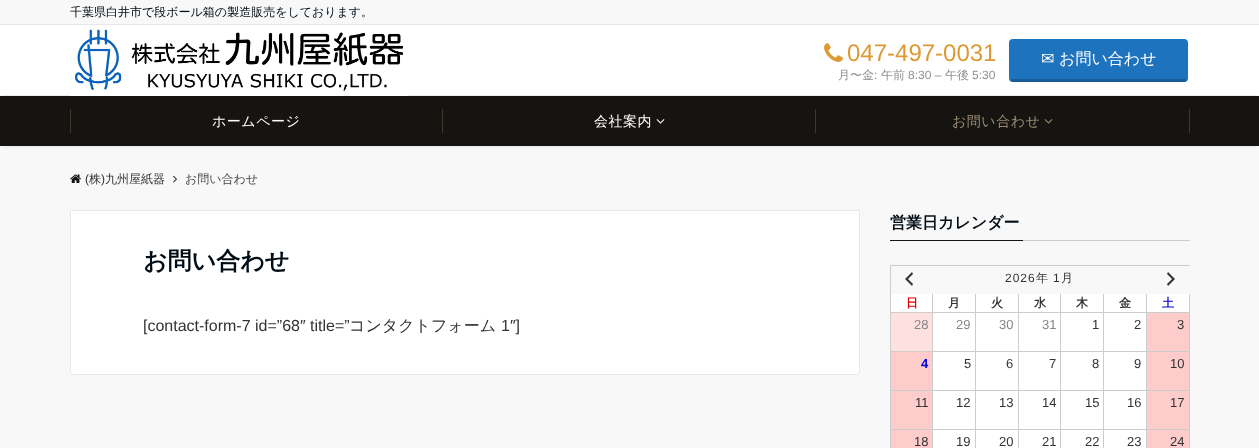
<svg xmlns="http://www.w3.org/2000/svg" xmlns:xlink="http://www.w3.org/1999/xlink" width="1259" height="448" viewBox="0 0 1259 448">
<style>
.cls-1{font:500 12px WenQuanYi Zen Hei;fill:#000c15}
.cls-2{font:24px Liberation Sans;fill:#dd9933}
.cls-3{font:500 12px WenQuanYi Zen Hei;fill:#919191}
.cls-4{font:12px Liberation Sans;fill:#919191}
.cls-5{font:16px DejaVu Sans;fill:#ffffff}
.cls-6{font:500 16px WenQuanYi Zen Hei;fill:#ffffff}
.cls-7{font:500 14px WenQuanYi Zen Hei;letter-spacing:0.5px;fill:#ffffff}
.cls-8{font:500 14px WenQuanYi Zen Hei;letter-spacing:0.5px;fill:#9b8d77}
.cls-9{font:12px Liberation Sans;fill:#333333}
.cls-10{font:500 12px WenQuanYi Zen Hei;fill:#333333}
.cls-11{font:500 12px WenQuanYi Zen Hei;fill:#484848}
.cls-12{font:bold 24px WenQuanYi Zen Hei;fill:#000c15}
.cls-13{font:16px Liberation Sans;fill:#333333}
.cls-14{font:500 16px WenQuanYi Zen Hei;fill:#333333}
.cls-15{font:bold 16px WenQuanYi Zen Hei;fill:#000c15}
.cls-16{font:12px Liberation Sans;letter-spacing:1px;fill:#333333}
.cls-17{font:500 12px WenQuanYi Zen Hei;letter-spacing:1px;fill:#333333}
.cls-18{font:bold 12px WenQuanYi Zen Hei;fill:#dd0000}
.cls-19{font:bold 12px WenQuanYi Zen Hei;fill:#333333}
.cls-20{font:bold 12px WenQuanYi Zen Hei;fill:#0000dd}
.cls-21{font:13px Liberation Sans;fill:#858585}
.cls-22{font:13px Liberation Sans;fill:#333333}
.cls-23{font:bold 13px Liberation Sans;fill:#0000dd}
</style>
<rect width="100%" height="100%" fill="#f8f8f8"/>
<rect fill="#e5e7e8" x="0" y="24" width="1259" height="1"/>
<rect fill="#000000" fill-opacity="0.3" filter="blur(1.5px)" x="3" y="30" width="1253" height="64"/>
<rect fill="#ffffff" x="0" y="25" width="1259" height="70"/>
<image xlink:href="image0.png" x="70" y="28" width="338" height="68"/>
<image xlink:href="image1.png" x="824" y="43" width="19" height="19"/>
<rect fill="#1e73be" x="1009" y="39" width="179" height="43" rx="4"/>
<rect fill="#000000" fill-opacity="0.2" x="1011" y="79" width="175" height="3"/>
<rect fill="#000000" fill-opacity="0.2" filter="blur(2px)" x="3" y="101" width="1253" height="44"/>
<rect fill="#161410" x="0" y="96" width="1259" height="50"/>
<rect fill="#3e382f" x="70" y="109" width="1" height="24"/>
<rect fill="#3e382f" x="442" y="109" width="1" height="24"/>
<image xlink:href="image2.png" x="656" y="119" width="9" height="5"/>
<rect fill="#3e382f" x="815" y="109" width="1" height="24"/>
<image xlink:href="image3.png" x="1044" y="119" width="9" height="5"/>
<rect fill="#3e382f" x="1189" y="109" width="1" height="24"/>
<image xlink:href="image4.png" x="70" y="174" width="11" height="9"/>
<image xlink:href="image5.png" x="173" y="175" width="4" height="8"/>
<path fill="#ffffff" stroke="#e5e7e8" d="M70.5 210.5H859.5V371C859.5 373 858 374.5 856 374.5H74C72 374.5 70.5 373 70.5 371Z"/>
<rect fill="#cccccc" x="1023" y="240" width="167" height="1"/>
<rect fill="#161410" x="890" y="240" width="133" height="1"/>
<rect fill="#cccccc" x="890" y="265" width="300" height="1"/>
<rect fill="#cccccc" x="890" y="265" width="1" height="183"/>
<image xlink:href="image6.png" x="905" y="272" width="8" height="14"/>
<image xlink:href="image7.png" x="1167" y="272" width="8" height="14"/>
<rect fill="#ffffff" x="891" y="294" width="41" height="18"/>
<rect fill="#cccccc" x="932" y="294" width="1" height="18"/>
<rect fill="#ffffff" x="933" y="294" width="42" height="18"/>
<rect fill="#cccccc" x="975" y="294" width="1" height="18"/>
<rect fill="#ffffff" x="976" y="294" width="42" height="18"/>
<rect fill="#cccccc" x="1018" y="294" width="1" height="18"/>
<rect fill="#ffffff" x="1019" y="294" width="41" height="18"/>
<rect fill="#cccccc" x="1060" y="294" width="1" height="18"/>
<rect fill="#ffffff" x="1061" y="294" width="42" height="18"/>
<rect fill="#cccccc" x="1103" y="294" width="1" height="18"/>
<rect fill="#ffffff" x="1104" y="294" width="42" height="18"/>
<rect fill="#cccccc" x="1146" y="294" width="1" height="18"/>
<rect fill="#ffffff" x="1147" y="294" width="42" height="18"/>
<rect fill="#cccccc" x="1189" y="294" width="1" height="18"/>
<rect fill="#ffffff" x="933" y="313" width="213" height="38"/>
<rect fill="#cccccc" x="891" y="312" width="299" height="1"/>
<rect fill="#cccccc" x="932" y="312" width="1" height="39"/>
<rect fill="#ffe0e0" x="891" y="313" width="41" height="38"/>
<rect fill="#cccccc" x="975" y="312" width="1" height="39"/>
<rect fill="#cccccc" x="1018" y="312" width="1" height="39"/>
<rect fill="#cccccc" x="1060" y="312" width="1" height="39"/>
<rect fill="#cccccc" x="1103" y="312" width="1" height="39"/>
<rect fill="#cccccc" x="1146" y="312" width="1" height="39"/>
<rect fill="#cccccc" x="1189" y="312" width="1" height="39"/>
<rect fill="#ffcccc" x="1147" y="313" width="42" height="38"/>
<rect fill="#ffffff" x="933" y="352" width="213" height="38"/>
<rect fill="#cccccc" x="891" y="351" width="299" height="1"/>
<rect fill="#cccccc" x="932" y="351" width="1" height="39"/>
<rect fill="#ffcccc" x="891" y="352" width="41" height="38"/>
<rect fill="#cccccc" x="975" y="351" width="1" height="39"/>
<rect fill="#cccccc" x="1018" y="351" width="1" height="39"/>
<rect fill="#cccccc" x="1060" y="351" width="1" height="39"/>
<rect fill="#cccccc" x="1103" y="351" width="1" height="39"/>
<rect fill="#cccccc" x="1146" y="351" width="1" height="39"/>
<rect fill="#cccccc" x="1189" y="351" width="1" height="39"/>
<rect fill="#ffcccc" x="1147" y="352" width="42" height="38"/>
<rect fill="#ffffff" x="933" y="391" width="213" height="38"/>
<rect fill="#cccccc" x="891" y="390" width="299" height="1"/>
<rect fill="#cccccc" x="932" y="390" width="1" height="39"/>
<rect fill="#ffcccc" x="891" y="391" width="41" height="38"/>
<rect fill="#cccccc" x="975" y="390" width="1" height="39"/>
<rect fill="#cccccc" x="1018" y="390" width="1" height="39"/>
<rect fill="#cccccc" x="1060" y="390" width="1" height="39"/>
<rect fill="#cccccc" x="1103" y="390" width="1" height="39"/>
<rect fill="#cccccc" x="1146" y="390" width="1" height="39"/>
<rect fill="#cccccc" x="1189" y="390" width="1" height="39"/>
<rect fill="#ffcccc" x="1147" y="391" width="42" height="38"/>
<rect fill="#ffffff" x="933" y="430" width="213" height="18"/>
<rect fill="#cccccc" x="891" y="429" width="299" height="1"/>
<rect fill="#cccccc" x="932" y="429" width="1" height="19"/>
<rect fill="#ffcccc" x="891" y="430" width="41" height="18"/>
<rect fill="#cccccc" x="975" y="429" width="1" height="19"/>
<rect fill="#cccccc" x="1018" y="429" width="1" height="19"/>
<rect fill="#cccccc" x="1060" y="429" width="1" height="19"/>
<rect fill="#cccccc" x="1103" y="429" width="1" height="19"/>
<rect fill="#cccccc" x="1146" y="429" width="1" height="19"/>
<rect fill="#cccccc" x="1189" y="429" width="1" height="19"/>
<rect fill="#ffcccc" x="1147" y="430" width="42" height="18"/>
<text class="cls-1" x="70" y="16">千葉県白井市で段ボール箱の製造販売をしております。</text>
<text class="cls-2" x="847" y="61">047-497-0031</text>
<text class="cls-3" x="838" y="79">月〜金</text>
<text class="cls-4" x="874" y="79">:</text>
<text class="cls-3" x="881" y="79">午前</text>
<text class="cls-4" x="908" y="79">8:30 –</text>
<text class="cls-3" x="945" y="79">午後</text>
<text class="cls-4" x="972" y="79">5:30</text>
<text class="cls-5" x="1041" y="64">✉︎</text>
<text class="cls-6" x="1059" y="64">お問い合わせ</text>
<text class="cls-7" x="212" y="126">ホームページ</text>
<text class="cls-7" x="594" y="126">会社案内</text>
<text class="cls-8" x="952" y="126">お問い合わせ</text>
<text class="cls-9" x="85" y="183">(</text>
<text class="cls-10" x="89" y="183">株</text>
<text class="cls-9" x="101" y="183">)</text>
<text class="cls-10" x="105" y="183">九州屋紙器</text>
<text class="cls-11" x="185" y="183">お問い合わせ</text>
<text class="cls-12" x="143" y="269">お問い合わせ</text>
<text class="cls-13" x="143" y="331">[contact-form-7 id=”68″ title=”</text>
<text class="cls-14" x="349" y="331">コンタクトフォーム</text>
<text class="cls-13" x="501" y="331">1″]</text>
<text class="cls-15" x="890" y="228">営業日カレンダー</text>
<text class="cls-16" x="1005" y="282">2026</text>
<text class="cls-17" x="1036" y="282">年</text>
<text class="cls-16" x="1053" y="282">1</text>
<text class="cls-17" x="1061" y="282">月</text>
<text class="cls-18" x="906" y="307">日</text>
<text class="cls-19" x="948" y="307">月</text>
<text class="cls-19" x="991" y="307">火</text>
<text class="cls-19" x="1034" y="307">水</text>
<text class="cls-19" x="1076" y="307">木</text>
<text class="cls-19" x="1119" y="307">金</text>
<text class="cls-20" x="1162" y="307">土</text>
<text class="cls-21" x="914" y="329">28</text>
<text class="cls-21" x="956" y="329">29</text>
<text class="cls-21" x="999" y="329">30</text>
<text class="cls-21" x="1042" y="329">31</text>
<text class="cls-22" x="1092" y="329">1</text>
<text class="cls-22" x="1134" y="329">2</text>
<text class="cls-22" x="1177" y="329">3</text>
<text class="cls-23" x="921" y="368">4</text>
<text class="cls-22" x="964" y="368">5</text>
<text class="cls-22" x="1006" y="368">6</text>
<text class="cls-22" x="1049" y="368">7</text>
<text class="cls-22" x="1092" y="368">8</text>
<text class="cls-22" x="1134" y="368">9</text>
<text class="cls-22" x="1170" y="368">10</text>
<text class="cls-22" x="915" y="407">11</text>
<text class="cls-22" x="956" y="407">12</text>
<text class="cls-22" x="999" y="407">13</text>
<text class="cls-22" x="1042" y="407">14</text>
<text class="cls-22" x="1085" y="407">15</text>
<text class="cls-22" x="1127" y="407">16</text>
<text class="cls-22" x="1170" y="407">17</text>
<text class="cls-22" x="914" y="446">18</text>
<text class="cls-22" x="956" y="446">19</text>
<text class="cls-22" x="999" y="446">20</text>
<text class="cls-22" x="1042" y="446">21</text>
<text class="cls-22" x="1085" y="446">22</text>
<text class="cls-22" x="1127" y="446">23</text>
<text class="cls-22" x="1170" y="446">24</text>
</svg>
